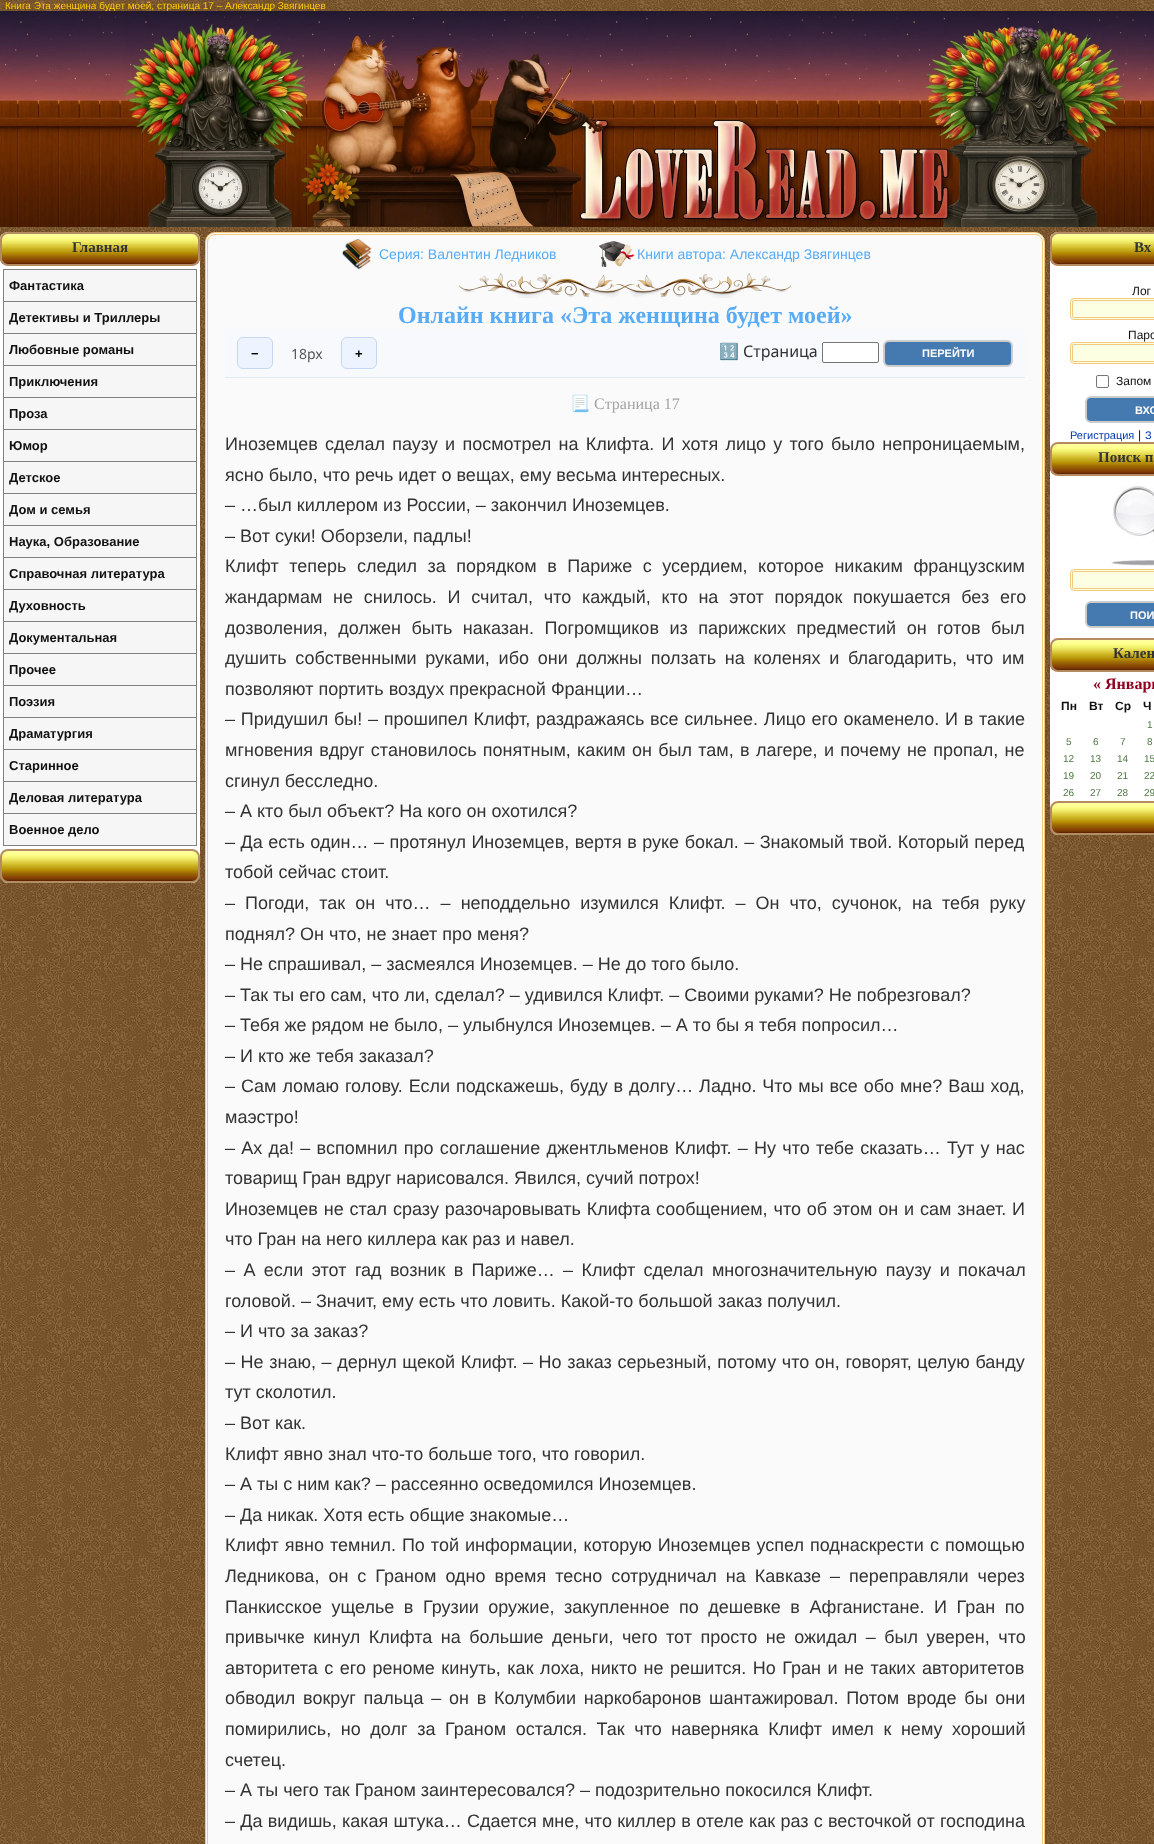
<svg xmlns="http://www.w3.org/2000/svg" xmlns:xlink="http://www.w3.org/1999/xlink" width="1154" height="1844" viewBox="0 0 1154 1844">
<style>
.cls-1{font:10px Liberation Sans;fill:#ffcc00}
.cls-2{font:bold 15px Liberation Serif;fill:#333333}
.cls-3{font:bold 13px Liberation Sans;fill:#111111}
.cls-4{font:14px Liberation Sans;fill:#57abf7}
.cls-5{font:bold 24px Liberation Serif;fill:#57abf7}
.cls-6{font:bold 13px Liberation Sans;fill:#000000}
.cls-7{font:14px Noto Sans;fill:#555555}
.cls-8{font:16px Noto Color Emoji;fill:#333333}
.cls-9{font:16px Noto Sans;fill:#333333}
.cls-10{font:bold 11px Liberation Sans;fill:#ffffff}
.cls-11{font:16px Noto Color Emoji;fill:#a3a3a3}
.cls-12{font:16px Liberation Serif;fill:#a3a3a3}
.cls-13{font:18px Liberation Sans;fill:#333333}
.cls-14{font:12px Liberation Sans;fill:#111111}
.cls-15{font:11px Liberation Sans;fill:#003aac}
.cls-16{font:bold 16px Liberation Serif;fill:#900020}
.cls-17{font:bold 12px Liberation Sans;fill:#111111}
.cls-18{font:10px Liberation Sans;fill:#4f7942}
</style>
<rect width="100%" height="100%" fill="#ffffff"/>
<image xlink:href="image0.png" x="0" y="0" width="1154" height="1844"/>
<rect fill="#ffffff" x="0" y="232" width="200" height="651" rx="8"/>
<image xlink:href="image3.png" x="0" y="234" width="200" height="30"/>
<rect fill="none" stroke="#b48c64" stroke-width="2" x="1" y="233" width="198" height="32" rx="7"/>
<rect fill="#808080" x="3" y="845" width="194" height="1"/>
<rect fill="#808080" x="3" y="269" width="194" height="1"/>
<rect fill="#808080" x="196" y="269" width="1" height="32"/>
<rect fill="#808080" x="3" y="269" width="1" height="32"/>
<rect fill="#f6f6f6" x="4" y="270" width="192" height="31"/>
<rect fill="#808080" x="3" y="301" width="194" height="1"/>
<rect fill="#808080" x="196" y="301" width="1" height="32"/>
<rect fill="#808080" x="3" y="301" width="1" height="32"/>
<rect fill="#f6f6f6" x="4" y="302" width="192" height="31"/>
<rect fill="#808080" x="3" y="333" width="194" height="1"/>
<rect fill="#808080" x="196" y="333" width="1" height="32"/>
<rect fill="#808080" x="3" y="333" width="1" height="32"/>
<rect fill="#f6f6f6" x="4" y="334" width="192" height="31"/>
<rect fill="#808080" x="3" y="365" width="194" height="1"/>
<rect fill="#808080" x="196" y="365" width="1" height="32"/>
<rect fill="#808080" x="3" y="365" width="1" height="32"/>
<rect fill="#f6f6f6" x="4" y="366" width="192" height="31"/>
<rect fill="#808080" x="3" y="397" width="194" height="1"/>
<rect fill="#808080" x="196" y="397" width="1" height="32"/>
<rect fill="#808080" x="3" y="397" width="1" height="32"/>
<rect fill="#f6f6f6" x="4" y="398" width="192" height="31"/>
<rect fill="#808080" x="3" y="429" width="194" height="1"/>
<rect fill="#808080" x="196" y="429" width="1" height="32"/>
<rect fill="#808080" x="3" y="429" width="1" height="32"/>
<rect fill="#f6f6f6" x="4" y="430" width="192" height="31"/>
<rect fill="#808080" x="3" y="461" width="194" height="1"/>
<rect fill="#808080" x="196" y="461" width="1" height="32"/>
<rect fill="#808080" x="3" y="461" width="1" height="32"/>
<rect fill="#f6f6f6" x="4" y="462" width="192" height="31"/>
<rect fill="#808080" x="3" y="493" width="194" height="1"/>
<rect fill="#808080" x="196" y="493" width="1" height="32"/>
<rect fill="#808080" x="3" y="493" width="1" height="32"/>
<rect fill="#f6f6f6" x="4" y="494" width="192" height="31"/>
<rect fill="#808080" x="3" y="525" width="194" height="1"/>
<rect fill="#808080" x="196" y="525" width="1" height="32"/>
<rect fill="#808080" x="3" y="525" width="1" height="32"/>
<rect fill="#f6f6f6" x="4" y="526" width="192" height="31"/>
<rect fill="#808080" x="3" y="557" width="194" height="1"/>
<rect fill="#808080" x="196" y="557" width="1" height="32"/>
<rect fill="#808080" x="3" y="557" width="1" height="32"/>
<rect fill="#f6f6f6" x="4" y="558" width="192" height="31"/>
<rect fill="#808080" x="3" y="589" width="194" height="1"/>
<rect fill="#808080" x="196" y="589" width="1" height="32"/>
<rect fill="#808080" x="3" y="589" width="1" height="32"/>
<rect fill="#f6f6f6" x="4" y="590" width="192" height="31"/>
<rect fill="#808080" x="3" y="621" width="194" height="1"/>
<rect fill="#808080" x="196" y="621" width="1" height="32"/>
<rect fill="#808080" x="3" y="621" width="1" height="32"/>
<rect fill="#f6f6f6" x="4" y="622" width="192" height="31"/>
<rect fill="#808080" x="3" y="653" width="194" height="1"/>
<rect fill="#808080" x="196" y="653" width="1" height="32"/>
<rect fill="#808080" x="3" y="653" width="1" height="32"/>
<rect fill="#f6f6f6" x="4" y="654" width="192" height="31"/>
<rect fill="#808080" x="3" y="685" width="194" height="1"/>
<rect fill="#808080" x="196" y="685" width="1" height="32"/>
<rect fill="#808080" x="3" y="685" width="1" height="32"/>
<rect fill="#f6f6f6" x="4" y="686" width="192" height="31"/>
<rect fill="#808080" x="3" y="717" width="194" height="1"/>
<rect fill="#808080" x="196" y="717" width="1" height="32"/>
<rect fill="#808080" x="3" y="717" width="1" height="32"/>
<rect fill="#f6f6f6" x="4" y="718" width="192" height="31"/>
<rect fill="#808080" x="3" y="749" width="194" height="1"/>
<rect fill="#808080" x="196" y="749" width="1" height="32"/>
<rect fill="#808080" x="3" y="749" width="1" height="32"/>
<rect fill="#f6f6f6" x="4" y="750" width="192" height="31"/>
<rect fill="#808080" x="3" y="781" width="194" height="1"/>
<rect fill="#808080" x="196" y="781" width="1" height="32"/>
<rect fill="#808080" x="3" y="781" width="1" height="32"/>
<rect fill="#f6f6f6" x="4" y="782" width="192" height="31"/>
<rect fill="#808080" x="3" y="813" width="194" height="1"/>
<rect fill="#808080" x="196" y="813" width="1" height="32"/>
<rect fill="#808080" x="3" y="813" width="1" height="32"/>
<rect fill="#f6f6f6" x="4" y="814" width="192" height="31"/>
<image xlink:href="image4.png" x="0" y="851" width="200" height="30"/>
<rect fill="none" stroke="#b48c64" stroke-width="2" x="1" y="850" width="198" height="32" rx="7"/>
<rect fill="#fafafa" stroke="#f1ca7f" x="205.5" y="232.5" width="839" height="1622" rx="9.5"/>
<rect fill="none" stroke="#f1ca7f" x="207.5" y="234.5" width="835" height="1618" rx="7.5"/>
<image xlink:href="image5.png" x="342" y="239" width="30" height="31"/>
<image xlink:href="image6.png" x="599" y="241" width="36" height="26"/>
<image xlink:href="image7.png" x="459" y="273" width="332" height="25"/>
<rect fill="#f7f9fc" x="225" y="329" width="800" height="48"/>
<rect fill="#e1e8f0" x="225" y="377" width="800" height="1"/>
<rect fill="#eef4ff" stroke="#c5d8f0" x="237.5" y="337.5" width="35" height="31" rx="5.5"/>
<rect fill="#eef4ff" stroke="#c5d8f0" x="341.5" y="337.5" width="35" height="31" rx="5.5"/>
<rect fill="#ffffff" stroke="#767676" x="822.5" y="342.5" width="56" height="20" rx="1.5"/>
<rect fill="#457ab0" stroke="#cccccc" stroke-width="2" x="884" y="341" width="128" height="25" rx="5"/>
<rect fill="#ffffff" x="1050" y="232" width="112" height="603" rx="8"/>
<image xlink:href="image8.png" x="1050" y="234" width="104" height="30"/>
<rect fill="none" stroke="#b48c64" stroke-width="2" x="1051" y="233" width="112" height="32" rx="7"/>
<rect fill="#fdffe2" stroke="#f1ca7f" x="1070.5" y="298.5" width="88" height="21" rx="3.5"/>
<rect fill="none" stroke="#f1ca7f" x="1072.5" y="300.5" width="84" height="17" rx="1.5"/>
<rect fill="#fdffe2" stroke="#f1ca7f" x="1070.5" y="342.5" width="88" height="21" rx="3.5"/>
<rect fill="none" stroke="#f1ca7f" x="1072.5" y="344.5" width="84" height="17" rx="1.5"/>
<rect fill="none" stroke="#767676" x="1096.5" y="375.5" width="12" height="12" rx="1.5"/>
<rect fill="#457ab0" stroke="#cccccc" stroke-width="2" x="1086" y="397" width="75" height="25" rx="5"/>
<image xlink:href="image9.png" x="1050" y="444" width="104" height="30"/>
<rect fill="none" stroke="#b48c64" stroke-width="2" x="1051" y="443" width="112" height="32" rx="7"/>
<image xlink:href="image10.png" x="1110" y="486" width="44" height="80"/>
<rect fill="#fdffe2" stroke="#f1ca7f" x="1070.5" y="569.5" width="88" height="21" rx="3.5"/>
<rect fill="none" stroke="#f1ca7f" x="1072.5" y="571.5" width="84" height="17" rx="1.5"/>
<rect fill="#457ab0" stroke="#cccccc" stroke-width="2" x="1086" y="602" width="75" height="25" rx="5"/>
<image xlink:href="image9.png" x="1050" y="640" width="104" height="30"/>
<rect fill="none" stroke="#b48c64" stroke-width="2" x="1051" y="639" width="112" height="32" rx="7"/>
<image xlink:href="image11.png" x="1050" y="803" width="104" height="30"/>
<rect fill="none" stroke="#b48c64" stroke-width="2" x="1051" y="802" width="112" height="32" rx="7"/>
<text class="cls-1" x="5" y="9">Книга Эта женщина будет моей, страница 17 – Александр Звягинцев</text>
<image xlink:href="image1.png" x="0" y="11" width="1154" height="216"/>
<image xlink:href="image2.png" x="125" y="15" width="1000" height="212"/>
<text class="cls-2" x="72" y="252">Главная</text>
<text class="cls-3" x="9" y="290">Фантастика</text>
<text class="cls-3" x="9" y="322">Детективы и Триллеры</text>
<text class="cls-3" x="9" y="354">Любовные романы</text>
<text class="cls-3" x="9" y="386">Приключения</text>
<text class="cls-3" x="9" y="418">Проза</text>
<text class="cls-3" x="9" y="450">Юмор</text>
<text class="cls-3" x="9" y="482">Детское</text>
<text class="cls-3" x="9" y="514">Дом и семья</text>
<text class="cls-3" x="9" y="546">Наука, Образование</text>
<text class="cls-3" x="9" y="578">Справочная литература</text>
<text class="cls-3" x="9" y="610">Духовность</text>
<text class="cls-3" x="9" y="642">Документальная</text>
<text class="cls-3" x="9" y="674">Прочее</text>
<text class="cls-3" x="9" y="706">Поэзия</text>
<text class="cls-3" x="9" y="738">Драматургия</text>
<text class="cls-3" x="9" y="770">Старинное</text>
<text class="cls-3" x="9" y="802">Деловая литература</text>
<text class="cls-3" x="9" y="834">Военное дело</text>
<text class="cls-4" x="379" y="259">Серия: Валентин Ледников</text>
<text class="cls-4" x="637" y="259">Книги автора: Александр Звягинцев</text>
<text class="cls-5" x="398" y="323">Онлайн книга «Эта женщина будет моей»</text>
<text class="cls-6" x="251" y="358">−</text>
<text class="cls-7" x="291" y="359">18px</text>
<text class="cls-6" x="355" y="358">+</text>
<text class="cls-8" x="719" y="357">🔢</text>
<text class="cls-9" x="743" y="357">Страница</text>
<text class="cls-10" x="922" y="357">ПЕРЕЙТИ</text>
<text class="cls-11" x="570" y="409">📃</text>
<text class="cls-12" x="594" y="409">Cтраница 17</text>
<text class="cls-13"><tspan x="225" y="450" word-spacing="2.25">Иноземцев сделал паузу и посмотрел на Клифта. И хотя лицо у того было непроницаемым,</tspan><tspan x="225" y="481">ясно было, что речь идет о вещах, ему весьма интересных.</tspan><tspan x="225" y="511">– …был киллером из России, – закончил Иноземцев.</tspan><tspan x="225" y="542">– Вот суки! Оборзели, падлы!</tspan><tspan x="225" y="572" word-spacing="5.5">Клифт теперь следил за порядком в Париже с усердием, которое никаким французским</tspan><tspan x="225" y="603" word-spacing="5.75">жандармам не снилось. И считал, что каждый, кто на этот порядок покушается без его</tspan><tspan x="225" y="634" word-spacing="5.5">дозволения, должен быть наказан. Погромщиков из парижских предместий он готов был</tspan><tspan x="225" y="664" word-spacing="3.75">душить собственными руками, ибо они должны ползать на коленях и благодарить, что им</tspan><tspan x="225" y="695">позволяют портить воздух прекрасной Франции…</tspan><tspan x="225" y="725" word-spacing="0.75">– Придушил бы! – прошипел Клифт, раздражаясь все сильнее. Лицо его окаменело. И в такие</tspan><tspan x="225" y="756" word-spacing="1.3">мгновения вдруг становилось понятным, каким он был там, в лагере, и почему не пропал, не</tspan><tspan x="225" y="787">сгинул бесследно.</tspan><tspan x="225" y="817">– А кто был объект? На кого он охотился?</tspan><tspan x="225" y="848" word-spacing="0.5">– Да есть один… – протянул Иноземцев, вертя в руке бокал. – Знакомый твой. Который перед</tspan><tspan x="225" y="878">тобой сейчас стоит.</tspan><tspan x="225" y="909" word-spacing="5">– Погоди, так он что… – неподдельно изумился Клифт. – Он что, сучонок, на тебя руку</tspan><tspan x="225" y="940">поднял? Он что, не знает про меня?</tspan><tspan x="225" y="970">– Не спрашивал, – засмеялся Иноземцев. – Не до того было.</tspan><tspan x="225" y="1001">– Так ты его сам, что ли, сделал? – удивился Клифт. – Своими руками? Не побрезговал?</tspan><tspan x="225" y="1031">– Тебя же рядом не было, – улыбнулся Иноземцев. – А то бы я тебя попросил…</tspan><tspan x="225" y="1062">– И кто же тебя заказал?</tspan><tspan x="225" y="1092" word-spacing="0.9">– Сам ломаю голову. Если подскажешь, буду в долгу… Ладно. Что мы все обо мне? Ваш ход,</tspan><tspan x="225" y="1123">маэстро!</tspan><tspan x="225" y="1154" word-spacing="1.25">– Ах да! – вспомнил про соглашение джентльменов Клифт. – Ну что тебе сказать… Тут у нас</tspan><tspan x="225" y="1184">товарищ Гран вдруг нарисовался. Явился, сучий потрох!</tspan><tspan x="225" y="1215" word-spacing="0.9">Иноземцев не стал сразу разочаровывать Клифта сообщением, что об этом он и сам знает. И</tspan><tspan x="225" y="1245">что Гран на него киллера как раз и навел.</tspan><tspan x="225" y="1276" word-spacing="3.4">– А если этот гад возник в Париже… – Клифт сделал многозначительную паузу и покачал</tspan><tspan x="225" y="1307">головой. – Значит, ему есть что ловить. Какой-то большой заказ получил.</tspan><tspan x="225" y="1337">– И что за заказ?</tspan><tspan x="225" y="1368" word-spacing="0.6">– Не знаю, – дернул щекой Клифт. – Но заказ серьезный, потому что он, говорят, целую банду</tspan><tspan x="225" y="1398">тут сколотил.</tspan><tspan x="225" y="1429">– Вот как.</tspan><tspan x="225" y="1460">Клифт явно знал что-то больше того, что говорил.</tspan><tspan x="225" y="1490">– А ты с ним как? – рассеянно осведомился Иноземцев.</tspan><tspan x="225" y="1521">– Да никак. Хотя есть общие знакомые…</tspan><tspan x="225" y="1551" word-spacing="1">Клифт явно темнил. По той информации, которую Иноземцев успел поднаскрести с помощью</tspan><tspan x="225" y="1582" word-spacing="4">Ледникова, он с Граном одно время тесно сотрудничал на Кавказе – переправляли через</tspan><tspan x="225" y="1613" word-spacing="4.5">Панкисское ущелье в Грузии оружие, закупленное по дешевке в Афганистане. И Гран по</tspan><tspan x="225" y="1643" word-spacing="3.5">привычке кинул Клифта на большие деньги, чего тот просто не ожидал – был уверен, что</tspan><tspan x="225" y="1674" word-spacing="1.5">авторитета с его реноме кинуть, как лоха, никто не решится. Но Гран и не таких авторитетов</tspan><tspan x="225" y="1704" word-spacing="2.75">обводил вокруг пальца – он в Колумбии наркобаронов шантажировал. Потом вроде бы они</tspan><tspan x="225" y="1735" word-spacing="4.6">помирились, но долг за Граном остался. Так что наверняка Клифт имел к нему хороший</tspan><tspan x="225" y="1766">счетец.</tspan><tspan x="225" y="1796">– А ты чего так Граном заинтересовался? – подозрительно покосился Клифт.</tspan><tspan x="225" y="1827" word-spacing="0.25">– Да видишь, какая штука… Сдается мне, что киллер в отеле как раз с весточкой от господина</tspan></text>
<text class="cls-2" x="1134" y="252">Вх</text>
<text class="cls-14" x="1132" y="295">Лог</text>
<text class="cls-14" x="1128" y="339">Паро</text>
<text class="cls-14" x="1116" y="385">Запом</text>
<text class="cls-10" x="1135" y="414">ВХО</text>
<text class="cls-15" x="1070" y="439">Регистрация</text>
<text class="cls-14" x="1138" y="439">|</text>
<text class="cls-15" x="1145" y="439">З</text>
<text class="cls-2" x="1098" y="462">Поиск п</text>
<text class="cls-10" x="1130" y="619">ПОИ</text>
<text class="cls-2" x="1113" y="658">Кален</text>
<text class="cls-16" x="1093" y="689">« Январь</text>
<text class="cls-17" x="1061" y="710">Пн</text>
<text class="cls-17" x="1089" y="710">Вт</text>
<text class="cls-17" x="1115" y="710">Ср</text>
<text class="cls-17" x="1143" y="710">Ч</text>
<text class="cls-18" x="1147" y="728">1</text>
<text class="cls-18" x="1066" y="745">5</text>
<text class="cls-18" x="1093" y="745">6</text>
<text class="cls-18" x="1120" y="745">7</text>
<text class="cls-18" x="1147" y="745">8</text>
<text class="cls-18" x="1063" y="762">12</text>
<text class="cls-18" x="1090" y="762">13</text>
<text class="cls-18" x="1117" y="762">14</text>
<text class="cls-18" x="1144" y="762">15</text>
<text class="cls-18" x="1063" y="779">19</text>
<text class="cls-18" x="1090" y="779">20</text>
<text class="cls-18" x="1117" y="779">21</text>
<text class="cls-18" x="1144" y="779">22</text>
<text class="cls-18" x="1063" y="796">26</text>
<text class="cls-18" x="1090" y="796">27</text>
<text class="cls-18" x="1117" y="796">28</text>
<text class="cls-18" x="1144" y="796">29</text>
</svg>
